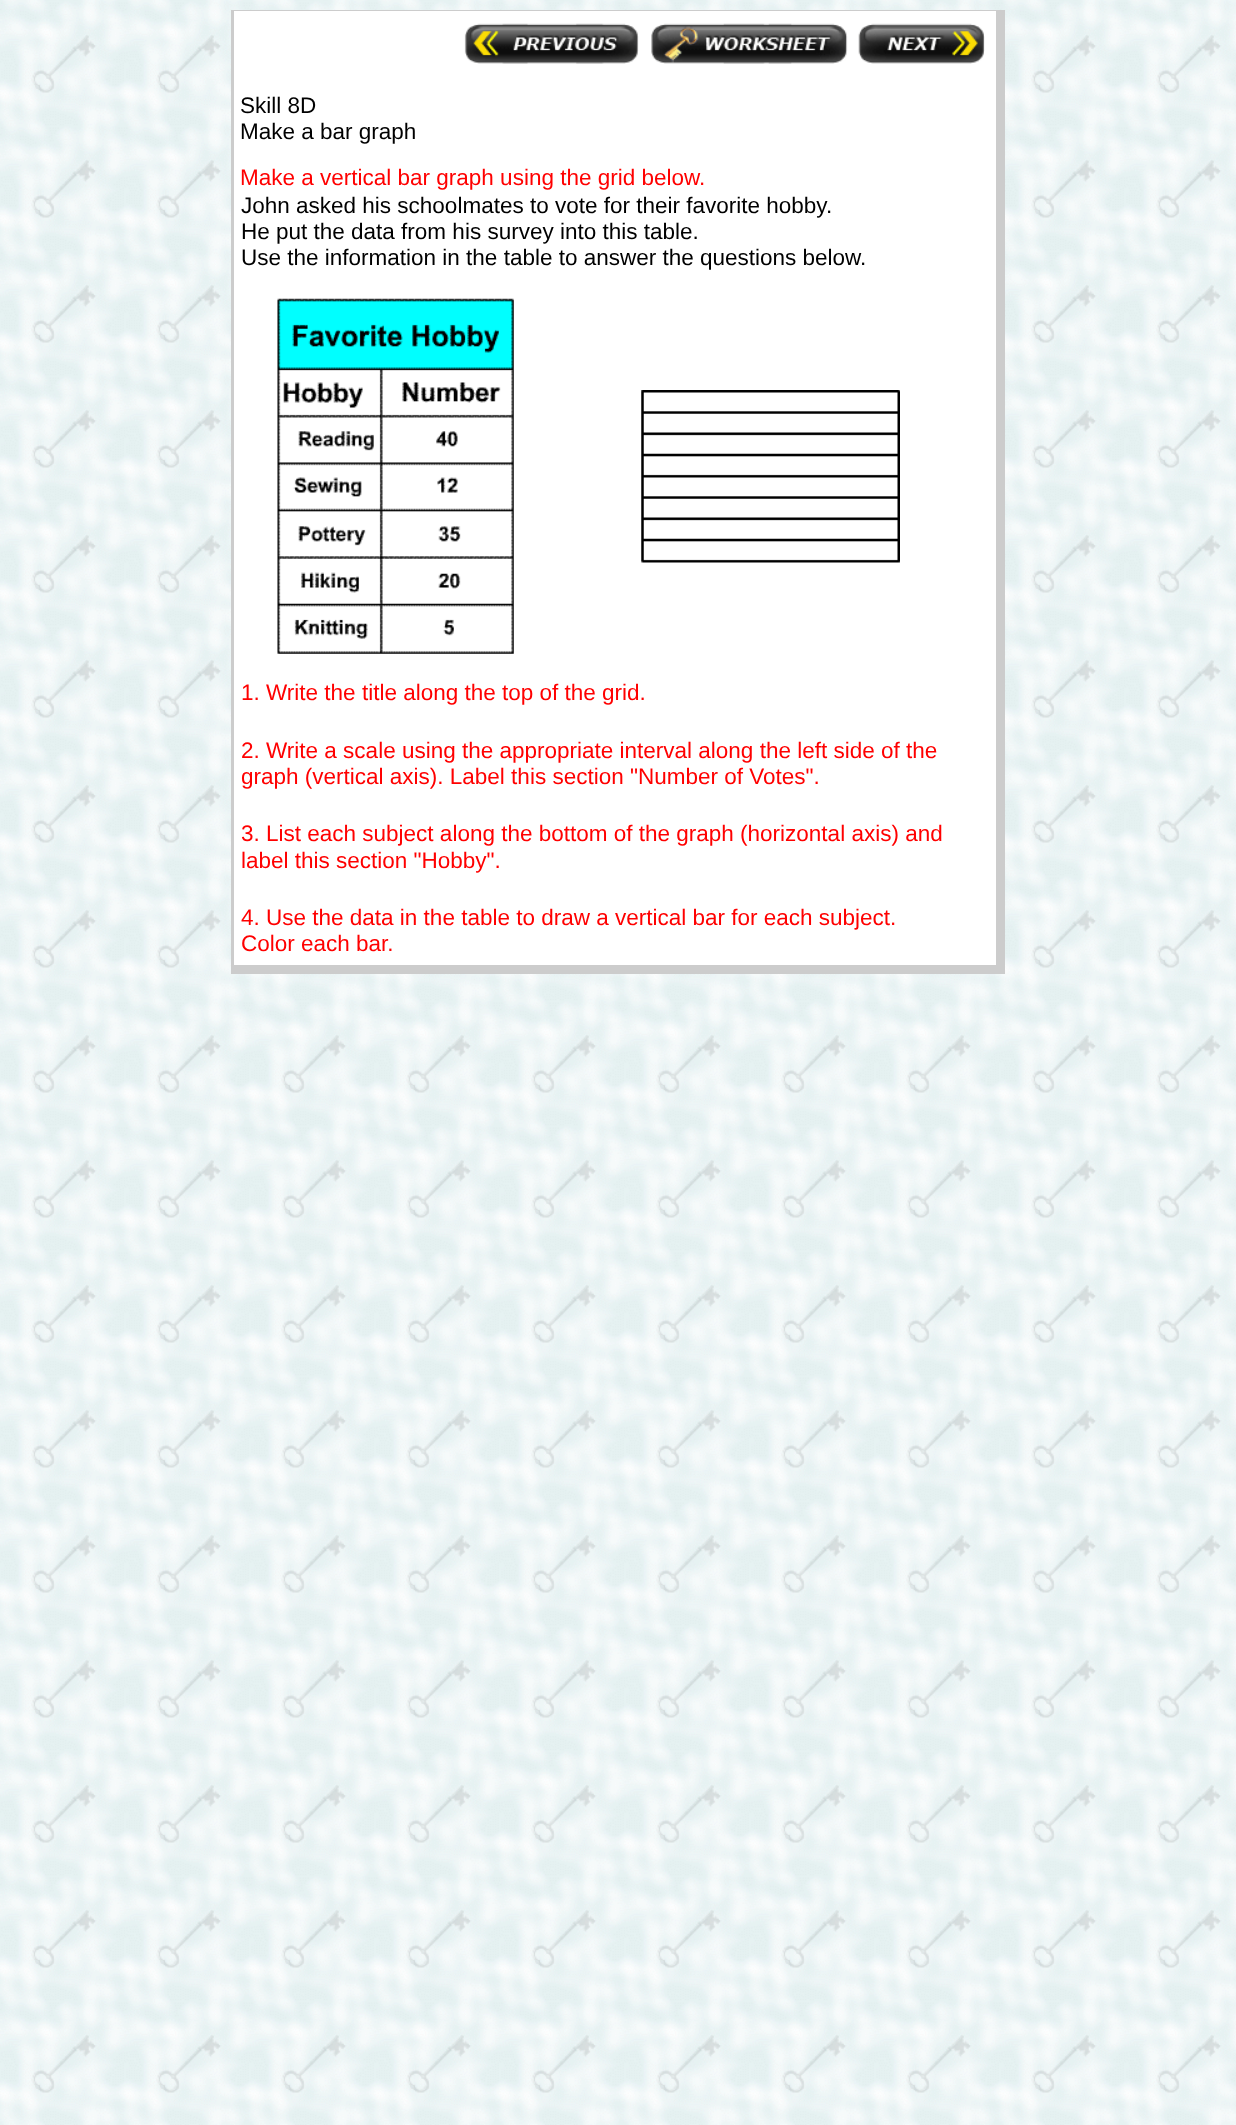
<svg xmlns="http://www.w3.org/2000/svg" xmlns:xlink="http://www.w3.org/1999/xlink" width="1236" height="2125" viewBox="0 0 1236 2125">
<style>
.cls-1{font:22.5px Liberation Sans;fill:#000000}
.cls-2{font:22.5px Liberation Sans;fill:#ff0000}
</style>
<rect width="100%" height="100%" fill="#ffffff"/>
<image xlink:href="image0.png" x="0" y="0" width="1236" height="2125"/>
<rect fill="#ffffff" x="234" y="11" width="762" height="954"/>
<rect fill="#cccccc" x="231" y="10" width="765" height="1"/>
<rect fill="#cccccc" x="231" y="10" width="3" height="955"/>
<rect fill="#cccccc" x="996" y="10" width="9" height="955"/>
<rect fill="#cccccc" x="231" y="965" width="774" height="9"/>
<image xlink:href="image1.png" x="464" y="23" width="175" height="41"/>
<image xlink:href="image2.png" x="651" y="23" width="197" height="41"/>
<image xlink:href="image3.png" x="858" y="23" width="127" height="41"/>
<image xlink:href="image4.png" x="277" y="298" width="237" height="356"/>
<image xlink:href="image5.png" x="641" y="390" width="259" height="173"/>
<text class="cls-1"><tspan x="240" y="113">Skill 8D</tspan><tspan x="240" y="139">Make a bar graph</tspan></text>
<text class="cls-2" x="240" y="185">Make a vertical bar graph using the grid below.</text>
<text class="cls-1"><tspan x="241" y="213">John asked his schoolmates to vote for their favorite hobby.</tspan><tspan x="241" y="239">He put the data from his survey into this table.</tspan><tspan x="241" y="265">Use the information in the table to answer the questions below.</tspan></text>
<text class="cls-2" x="241" y="700">1. Write the title along the top of the grid.</text>
<text class="cls-2"><tspan x="241" y="758">2. Write a scale using the appropriate interval along the left side of the</tspan><tspan x="241" y="784">graph (vertical axis). Label this section "Number of Votes".</tspan></text>
<text class="cls-2"><tspan x="241" y="841">3. List each subject along the bottom of the graph (horizontal axis) and</tspan><tspan x="241" y="868">label this section "Hobby".</tspan></text>
<text class="cls-2"><tspan x="241" y="925">4. Use the data in the table to draw a vertical bar for each subject.</tspan><tspan x="241" y="951">Color each bar.</tspan></text>
</svg>
